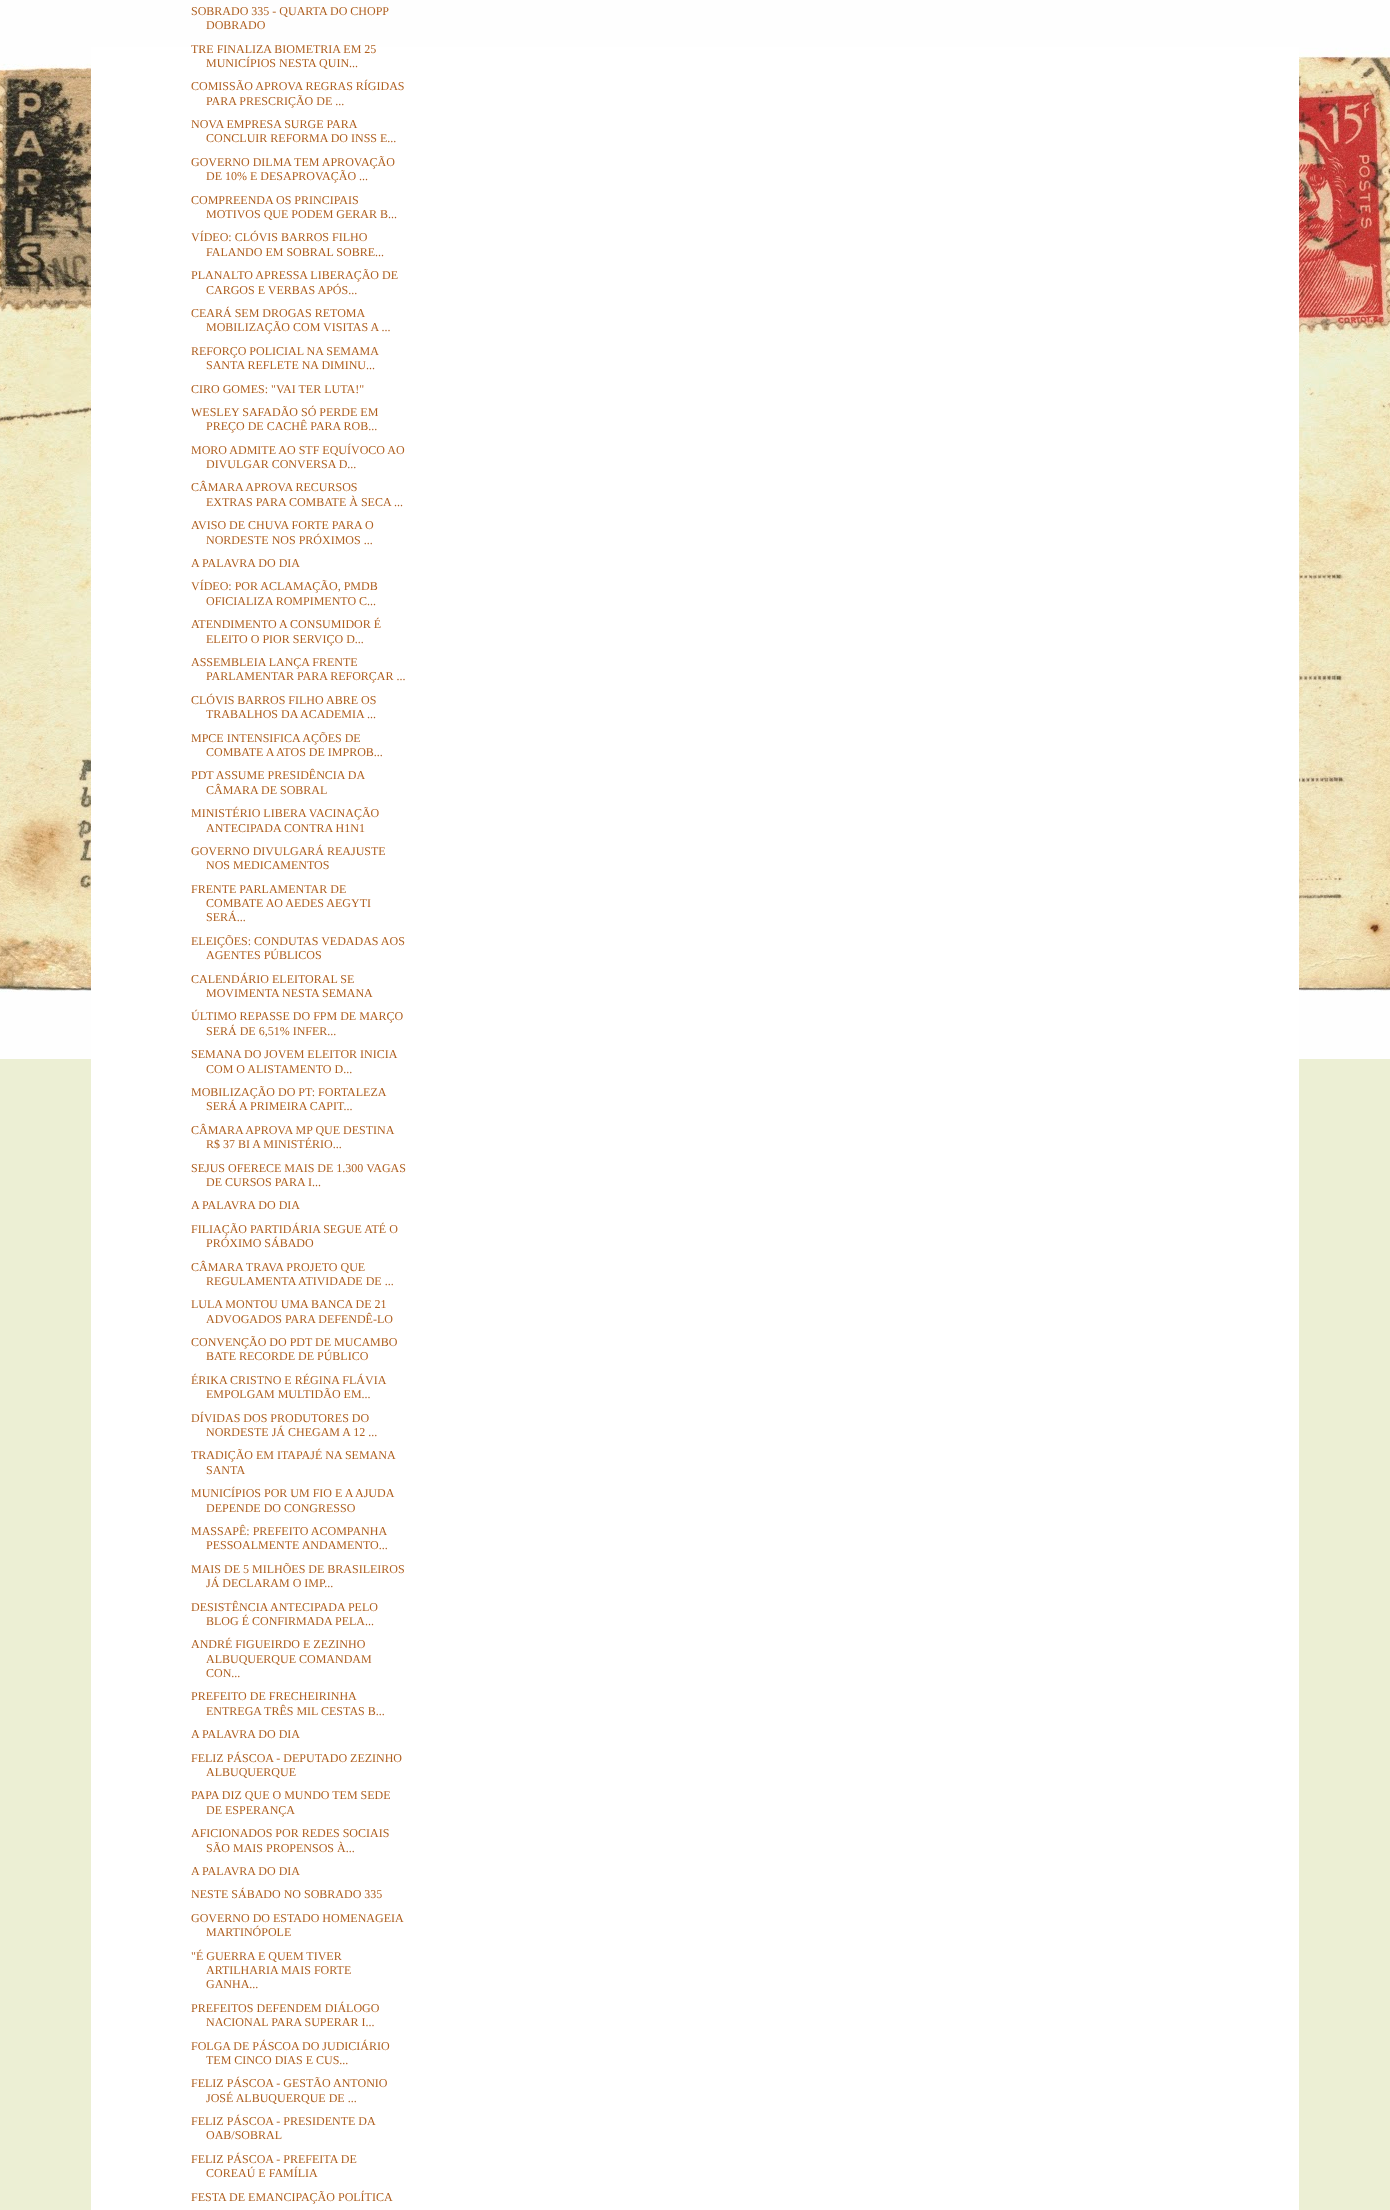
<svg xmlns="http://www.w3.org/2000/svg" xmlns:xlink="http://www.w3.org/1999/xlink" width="1390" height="2210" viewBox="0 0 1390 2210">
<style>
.cls-1{font:12px Liberation Serif;fill:#af5f1f}
</style>
<rect width="100%" height="100%" fill="#ecefd4"/>
<image xlink:href="image0.png" x="0" y="0" width="1390" height="1059"/>
<rect fill="#ffffff" x="91" y="47" width="1208" height="2163"/>
<text class="cls-1" x="191" y="15">SOBRADO 335 - QUARTA DO CHOPP</text>
<text class="cls-1" x="206" y="29">DOBRADO</text>
<text class="cls-1" x="191" y="53">TRE FINALIZA BIOMETRIA EM 25</text>
<text class="cls-1" x="206" y="67">MUNICÍPIOS NESTA QUIN...</text>
<text class="cls-1" x="191" y="90">COMISSÃO APROVA REGRAS RÍGIDAS</text>
<text class="cls-1" x="206" y="105">PARA PRESCRIÇÃO DE ...</text>
<text class="cls-1" x="191" y="128">NOVA EMPRESA SURGE PARA</text>
<text class="cls-1" x="206" y="142">CONCLUIR REFORMA DO INSS E...</text>
<text class="cls-1" x="191" y="166">GOVERNO DILMA TEM APROVAÇÃO</text>
<text class="cls-1" x="206" y="180">DE 10% E DESAPROVAÇÃO ...</text>
<text class="cls-1" x="191" y="204">COMPREENDA OS PRINCIPAIS</text>
<text class="cls-1" x="206" y="218">MOTIVOS QUE PODEM GERAR B...</text>
<text class="cls-1" x="191" y="241">VÍDEO: CLÓVIS BARROS FILHO</text>
<text class="cls-1" x="206" y="256">FALANDO EM SOBRAL SOBRE...</text>
<text class="cls-1" x="191" y="279">PLANALTO APRESSA LIBERAÇÃO DE</text>
<text class="cls-1" x="206" y="294">CARGOS E VERBAS APÓS...</text>
<text class="cls-1" x="191" y="317">CEARÁ SEM DROGAS RETOMA</text>
<text class="cls-1" x="206" y="331">MOBILIZAÇÃO COM VISITAS A ...</text>
<text class="cls-1" x="191" y="355">REFORÇO POLICIAL NA SEMAMA</text>
<text class="cls-1" x="206" y="369">SANTA REFLETE NA DIMINU...</text>
<text class="cls-1"><tspan x="191" y="393">CIRO GOMES: "VAI TER LUTA!"</tspan><tspan x="191" y="416">WESLEY SAFADÃO SÓ PERDE EM</tspan></text>
<text class="cls-1" x="206" y="430">PREÇO DE CACHÊ PARA ROB...</text>
<text class="cls-1" x="191" y="454">MORO ADMITE AO STF EQUÍVOCO AO</text>
<text class="cls-1" x="206" y="468">DIVULGAR CONVERSA D...</text>
<text class="cls-1" x="191" y="491">CÂMARA APROVA RECURSOS</text>
<text class="cls-1" x="206" y="506">EXTRAS PARA COMBATE À SECA ...</text>
<text class="cls-1" x="191" y="529">AVISO DE CHUVA FORTE PARA O</text>
<text class="cls-1" x="206" y="544">NORDESTE NOS PRÓXIMOS ...</text>
<text class="cls-1"><tspan x="191" y="567">A PALAVRA DO DIA</tspan><tspan x="191" y="590">VÍDEO: POR ACLAMAÇÃO, PMDB</tspan></text>
<text class="cls-1" x="206" y="605">OFICIALIZA ROMPIMENTO C...</text>
<text class="cls-1" x="191" y="628">ATENDIMENTO A CONSUMIDOR É</text>
<text class="cls-1" x="206" y="643">ELEITO O PIOR SERVIÇO D...</text>
<text class="cls-1" x="191" y="666">ASSEMBLEIA LANÇA FRENTE</text>
<text class="cls-1" x="206" y="680">PARLAMENTAR PARA REFORÇAR ...</text>
<text class="cls-1" x="191" y="704">CLÓVIS BARROS FILHO ABRE OS</text>
<text class="cls-1" x="206" y="718">TRABALHOS DA ACADEMIA ...</text>
<text class="cls-1" x="191" y="742">MPCE INTENSIFICA AÇÕES DE</text>
<text class="cls-1" x="206" y="756">COMBATE A ATOS DE IMPROB...</text>
<text class="cls-1" x="191" y="779">PDT ASSUME PRESIDÊNCIA DA</text>
<text class="cls-1" x="206" y="794">CÂMARA DE SOBRAL</text>
<text class="cls-1" x="191" y="817">MINISTÉRIO LIBERA VACINAÇÃO</text>
<text class="cls-1" x="206" y="832">ANTECIPADA CONTRA H1N1</text>
<text class="cls-1" x="191" y="855">GOVERNO DIVULGARÁ REAJUSTE</text>
<text class="cls-1" x="206" y="869">NOS MEDICAMENTOS</text>
<text class="cls-1" x="191" y="893">FRENTE PARLAMENTAR DE</text>
<text class="cls-1"><tspan x="206" y="907">COMBATE AO AEDES AEGYTI</tspan><tspan x="206" y="921">SERÁ...</tspan></text>
<text class="cls-1" x="191" y="945">ELEIÇÕES: CONDUTAS VEDADAS AOS</text>
<text class="cls-1" x="206" y="959">AGENTES PÚBLICOS</text>
<text class="cls-1" x="191" y="983">CALENDÁRIO ELEITORAL SE</text>
<text class="cls-1" x="206" y="997">MOVIMENTA NESTA SEMANA</text>
<text class="cls-1" x="191" y="1020">ÚLTIMO REPASSE DO FPM DE MARÇO</text>
<text class="cls-1" x="206" y="1035">SERÁ DE 6,51% INFER...</text>
<text class="cls-1" x="191" y="1058">SEMANA DO JOVEM ELEITOR INICIA</text>
<text class="cls-1" x="206" y="1073">COM O ALISTAMENTO D...</text>
<text class="cls-1" x="191" y="1096">MOBILIZAÇÃO DO PT: FORTALEZA</text>
<text class="cls-1" x="206" y="1110">SERÁ A PRIMEIRA CAPIT...</text>
<text class="cls-1" x="191" y="1134">CÂMARA APROVA MP QUE DESTINA</text>
<text class="cls-1" x="206" y="1148">R$ 37 BI A MINISTÉRIO...</text>
<text class="cls-1" x="191" y="1172">SEJUS OFERECE MAIS DE 1.300 VAGAS</text>
<text class="cls-1" x="206" y="1186">DE CURSOS PARA I...</text>
<text class="cls-1" x="191" y="1209">A PALAVRA DO DIA</text>
<text class="cls-1" x="191" y="1233">FILIAÇÃO PARTIDÁRIA SEGUE ATÉ O</text>
<text class="cls-1" x="206" y="1247">PRÓXIMO SÁBADO</text>
<text class="cls-1" x="191" y="1271">CÂMARA TRAVA PROJETO QUE</text>
<text class="cls-1" x="206" y="1285">REGULAMENTA ATIVIDADE DE ...</text>
<text class="cls-1" x="191" y="1308">LULA MONTOU UMA BANCA DE 21</text>
<text class="cls-1" x="206" y="1323">ADVOGADOS PARA DEFENDÊ-LO</text>
<text class="cls-1" x="191" y="1346">CONVENÇÃO DO PDT DE MUCAMBO</text>
<text class="cls-1" x="206" y="1360">BATE RECORDE DE PÚBLICO</text>
<text class="cls-1" x="191" y="1384">ÉRIKA CRISTNO E RÉGINA FLÁVIA</text>
<text class="cls-1" x="206" y="1398">EMPOLGAM MULTIDÃO EM...</text>
<text class="cls-1" x="191" y="1422">DÍVIDAS DOS PRODUTORES DO</text>
<text class="cls-1" x="206" y="1436">NORDESTE JÁ CHEGAM A 12 ...</text>
<text class="cls-1" x="191" y="1459">TRADIÇÃO EM ITAPAJÉ NA SEMANA</text>
<text class="cls-1" x="206" y="1474">SANTA</text>
<text class="cls-1" x="191" y="1497">MUNICÍPIOS POR UM FIO E A AJUDA</text>
<text class="cls-1" x="206" y="1512">DEPENDE DO CONGRESSO</text>
<text class="cls-1" x="191" y="1535">MASSAPÊ: PREFEITO ACOMPANHA</text>
<text class="cls-1" x="206" y="1549">PESSOALMENTE ANDAMENTO...</text>
<text class="cls-1" x="191" y="1573">MAIS DE 5 MILHÕES DE BRASILEIROS</text>
<text class="cls-1" x="206" y="1587">JÁ DECLARAM O IMP...</text>
<text class="cls-1" x="191" y="1611">DESISTÊNCIA ANTECIPADA PELO</text>
<text class="cls-1" x="206" y="1625">BLOG É CONFIRMADA PELA...</text>
<text class="cls-1" x="191" y="1648">ANDRÉ FIGUEIRDO E ZEZINHO</text>
<text class="cls-1"><tspan x="206" y="1663">ALBUQUERQUE COMANDAM</tspan><tspan x="206" y="1677">CON...</tspan></text>
<text class="cls-1" x="191" y="1700">PREFEITO DE FRECHEIRINHA</text>
<text class="cls-1" x="206" y="1715">ENTREGA TRÊS MIL CESTAS B...</text>
<text class="cls-1" x="191" y="1738">A PALAVRA DO DIA</text>
<text class="cls-1" x="191" y="1762">FELIZ PÁSCOA - DEPUTADO ZEZINHO</text>
<text class="cls-1" x="206" y="1776">ALBUQUERQUE</text>
<text class="cls-1" x="191" y="1799">PAPA DIZ QUE O MUNDO TEM SEDE</text>
<text class="cls-1" x="206" y="1814">DE ESPERANÇA</text>
<text class="cls-1" x="191" y="1837">AFICIONADOS POR REDES SOCIAIS</text>
<text class="cls-1" x="206" y="1852">SÃO MAIS PROPENSOS À...</text>
<text class="cls-1"><tspan x="191" y="1875">A PALAVRA DO DIA</tspan><tspan x="191" y="1898">NESTE SÁBADO NO SOBRADO 335</tspan></text>
<text class="cls-1" x="191" y="1922">GOVERNO DO ESTADO HOMENAGEIA</text>
<text class="cls-1" x="206" y="1936">MARTINÓPOLE</text>
<text class="cls-1" x="191" y="1960">"É GUERRA E QUEM TIVER</text>
<text class="cls-1"><tspan x="206" y="1974">ARTILHARIA MAIS FORTE</tspan><tspan x="206" y="1988">GANHA...</tspan></text>
<text class="cls-1" x="191" y="2012">PREFEITOS DEFENDEM DIÁLOGO</text>
<text class="cls-1" x="206" y="2026">NACIONAL PARA SUPERAR I...</text>
<text class="cls-1" x="191" y="2050">FOLGA DE PÁSCOA DO JUDICIÁRIO</text>
<text class="cls-1" x="206" y="2064">TEM CINCO DIAS E CUS...</text>
<text class="cls-1" x="191" y="2087">FELIZ PÁSCOA - GESTÃO ANTONIO</text>
<text class="cls-1" x="206" y="2102">JOSÉ ALBUQUERQUE DE ...</text>
<text class="cls-1" x="191" y="2125">FELIZ PÁSCOA - PRESIDENTE DA</text>
<text class="cls-1" x="206" y="2139">OAB/SOBRAL</text>
<text class="cls-1" x="191" y="2163">FELIZ PÁSCOA - PREFEITA DE</text>
<text class="cls-1" x="206" y="2177">COREAÚ E FAMÍLIA</text>
<text class="cls-1" x="191" y="2201">FESTA DE EMANCIPAÇÃO POLÍTICA</text>
</svg>
